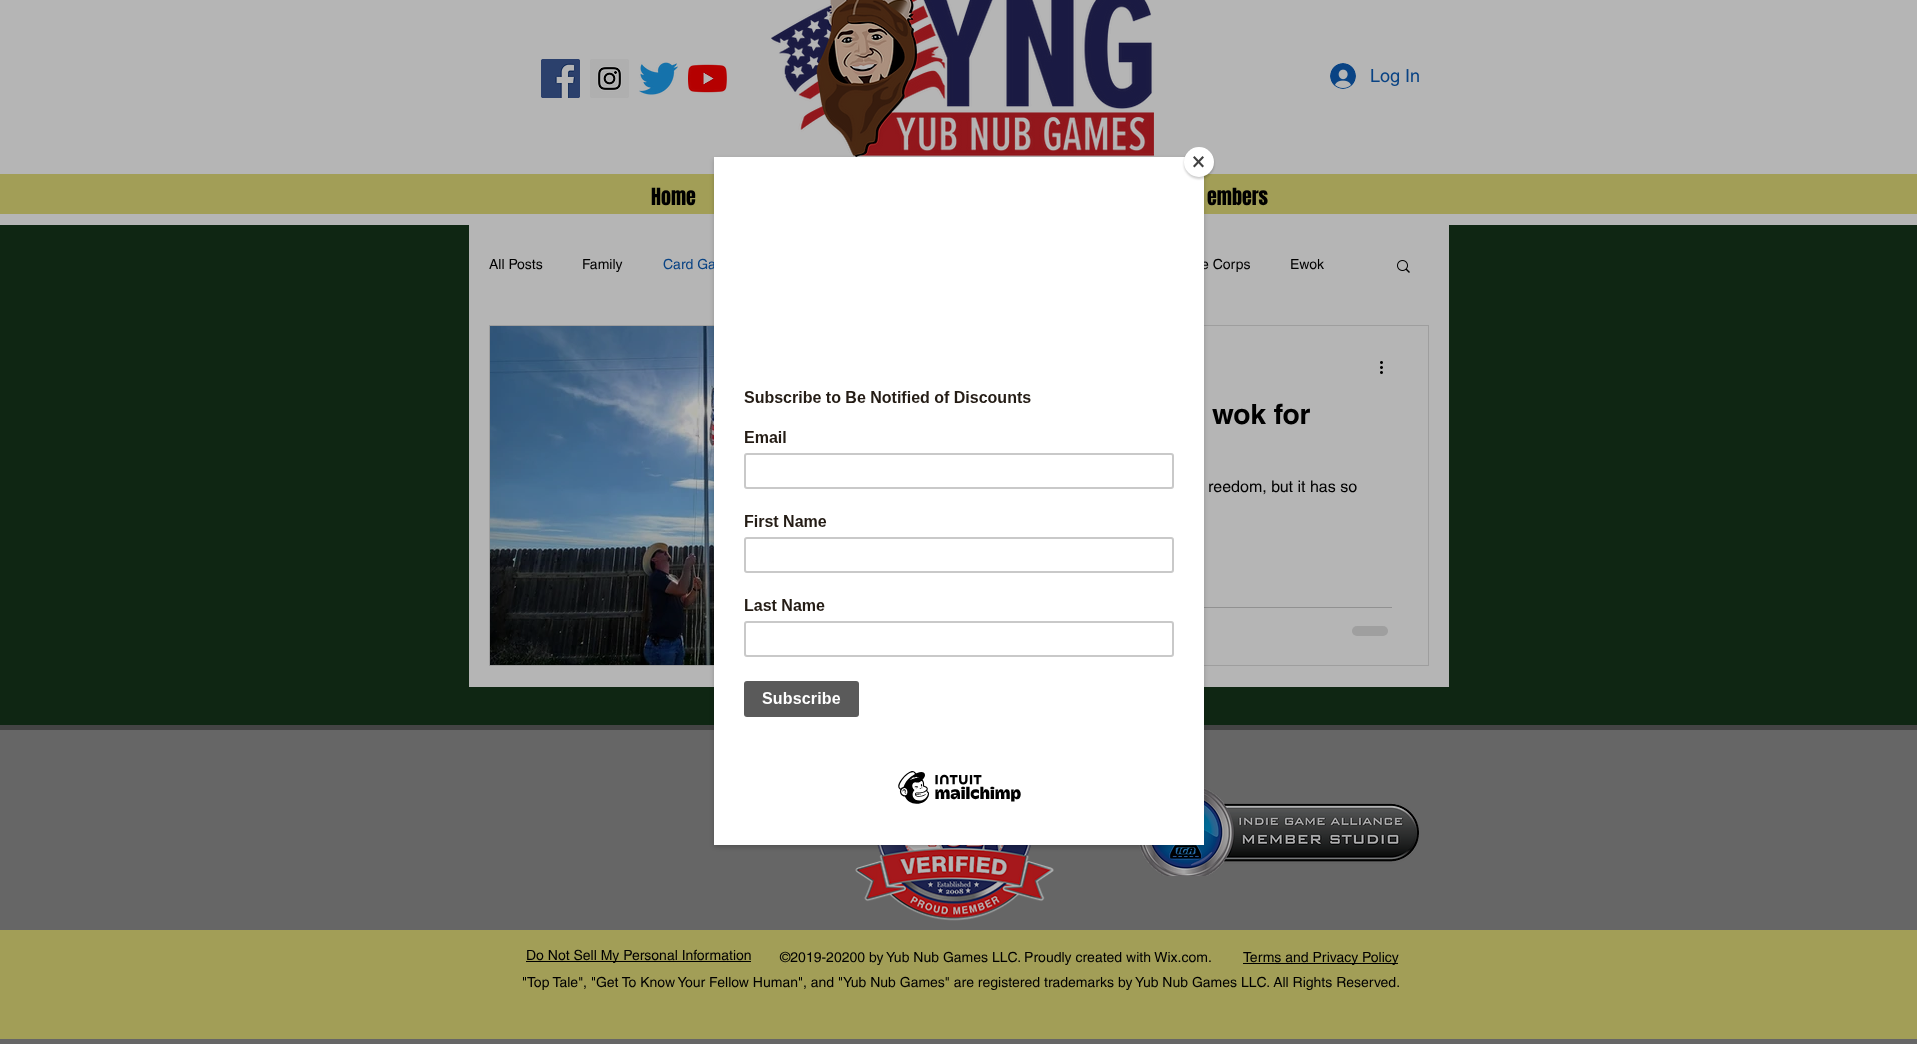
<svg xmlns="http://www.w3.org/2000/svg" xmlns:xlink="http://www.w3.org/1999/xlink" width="1917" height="1044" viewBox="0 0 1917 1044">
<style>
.cls-1{font:18px helvetica;fill:#094384}
.cls-2{font:20px Anton;fill:#000000}
.cls-3{font:14px helvetica;fill:#000000}
.cls-4{font:14px helvetica;fill:#094384}
.cls-5{font:bold 28px helvetica;fill:#000000}
.cls-6{font:16px helvetica;fill:#000000}
</style>
<rect width="100%" height="100%" fill="#0f2613"/>
<rect fill="#b5b5b5" x="0" y="0" width="1917" height="225"/>
<image xlink:href="image0.png" x="541" y="59" width="39" height="39"/>
<image xlink:href="image1.png" x="590" y="59" width="39" height="39"/>
<image xlink:href="image2.png" x="639" y="62" width="39" height="33"/>
<image xlink:href="image3.png" x="688" y="64" width="39" height="29"/>
<image xlink:href="image4.png" x="771" y="0" width="383" height="157"/>
<image xlink:href="image5.png" x="1330" y="63" width="26" height="26"/>
<rect fill="#a29e57" x="0" y="174" width="1917" height="40"/>
<rect fill="#b5b5b5" x="469" y="225" width="980" height="462"/>
<image xlink:href="image6.png" x="1397" y="260" width="13" height="13"/>
<rect fill="none" stroke="#9e9e9e" x="489.5" y="325.5" width="939" height="340"/>
<image xlink:href="image7.png" x="490" y="326" width="224" height="339"/>
<image xlink:href="image8.png" x="1380" y="361" width="3" height="13"/>
<rect fill="#919191" x="1204" y="607" width="188" height="1"/>
<rect fill="#9f9f9f" x="1352" y="626" width="36" height="10" rx="5"/>
<rect fill="#666666" x="0" y="730" width="1917" height="314"/>
<rect fill="#444444" x="0" y="725" width="1917" height="5"/>
<image xlink:href="image9.png" x="855" y="845" width="199" height="76"/>
<image xlink:href="image10.png" x="1139" y="788" width="280" height="88"/>
<rect fill="#a29e57" x="0" y="930" width="1917" height="109"/>
<rect fill="#000000" x="526" y="961" width="225" height="1"/>
<rect fill="#000000" x="1243" y="963" width="155" height="1"/>
<rect fill="#000000" fill-opacity="0.2" filter="blur(2px)" x="714" y="159" width="490" height="688"/>
<text class="cls-1" x="1370" y="82">Log In</text>
<text class="cls-2" x="651" y="205">Home</text>
<text class="cls-2" x="1207" y="205">embers</text>
<text class="cls-3" x="489" y="269">All Posts</text>
<text class="cls-3" x="582" y="269">Family</text>
<text class="cls-4" x="663" y="269">Card Ga</text>
<text class="cls-3" x="1201" y="269">e Corps</text>
<text class="cls-3" x="1290" y="269">Ewok</text>
<text class="cls-5" x="1212" y="424">wok for</text>
<text class="cls-6" x="1208" y="492">reedom, but it has so</text>
<text class="cls-3" x="526" y="960">Do Not Sell My Personal Information</text>
<text class="cls-3" x="780" y="962">©2019-20200 by Yub Nub Games LLC. Proudly created with Wix.com.</text>
<text class="cls-3" x="1243" y="962">Terms and Privacy Policy</text>
<text class="cls-3" x="522" y="987">"Top Tale", "Get To Know Your Fellow Human", and "Yub Nub Games" are registered trademarks by Yub Nub Games LLC. All Rights Reserved.</text>
<image xlink:href="image11.png" x="714" y="157" width="490" height="688"/>
<rect fill="#000000" fill-opacity="0.2" filter="blur(1px)" x="1184" y="149" width="30" height="30" rx="15"/>
<circle fill="#ffffff" cx="1199" cy="162" r="15"/>
<path fill="#414141" d="M1202.5 156L1204 157.5L1194.5 167.5L1193 166Z"/>
<path fill="#414141" d="M1193 157.5L1194.5 156L1204 166L1202.5 167.5Z"/>
</svg>
